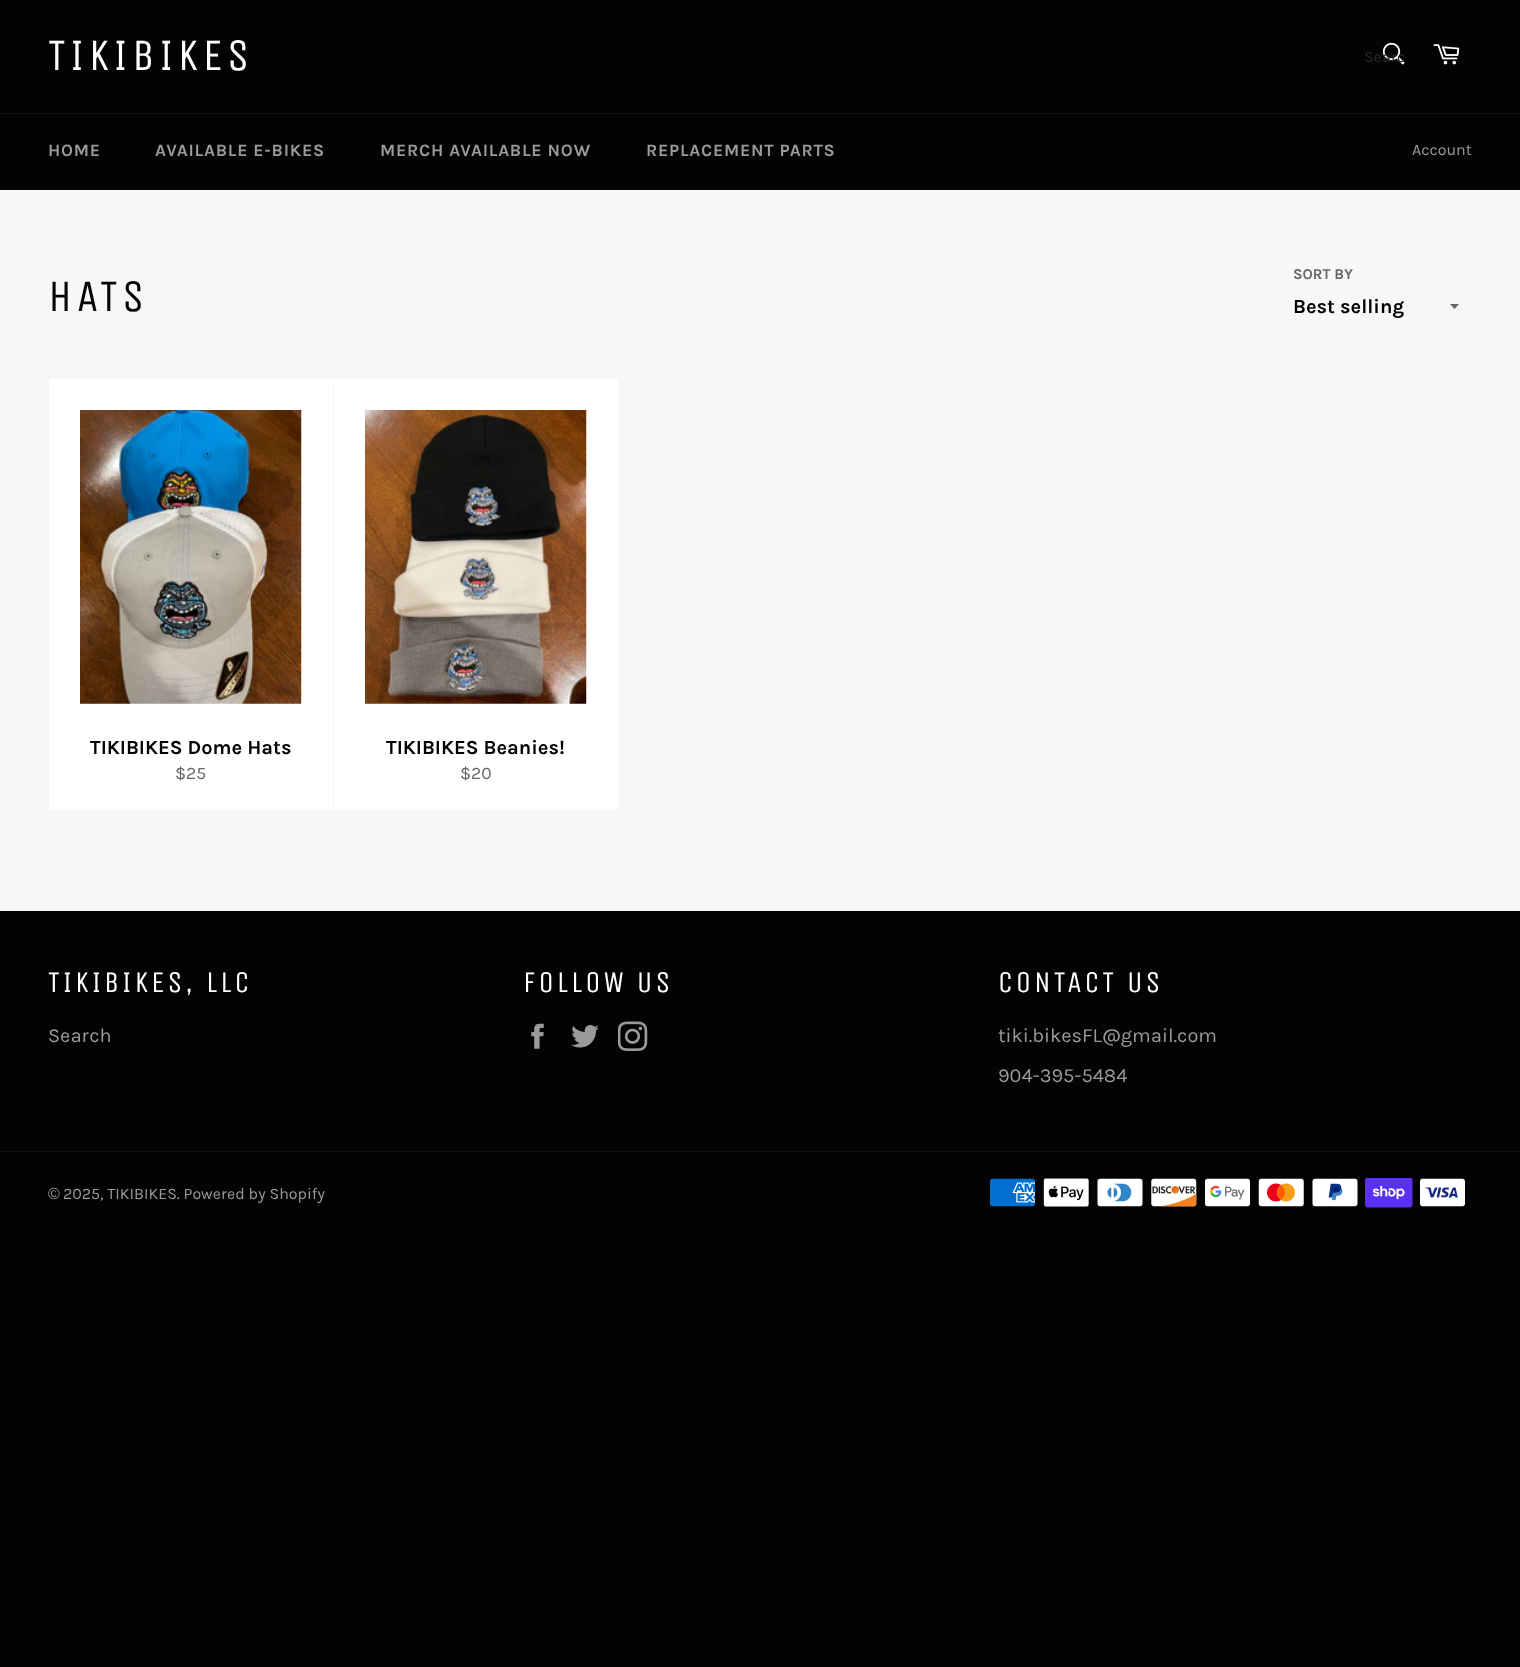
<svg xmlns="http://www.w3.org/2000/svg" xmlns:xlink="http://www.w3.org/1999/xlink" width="1520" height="1667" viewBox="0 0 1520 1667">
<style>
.cls-1{font:45px Unica One;letter-spacing:4.5px;fill:#ffffff}
.cls-2{font:16px Karla;fill:#2a2a2a}
.cls-3{font:bold 17.5px Karla;letter-spacing:0.75px;fill:#9a9a9a}
.cls-4{font:16px Karla;fill:#9a9a9a}
.cls-5{font:45px Unica One;letter-spacing:4.5px;fill:#030303}
.cls-6{font:bold 15px Karla;fill:#666666}
.cls-7{font:bold 20px Karla;fill:#030303}
.cls-8{font:17.5px Karla;fill:#666666}
.cls-9{font:30px Unica One;letter-spacing:3px;fill:#ffffff}
.cls-10{font:20px Karla;fill:#9a9a9a}
.cls-11{font:16px Liberation Sans;fill:#9a9a9a}
</style>
<defs>
<clipPath id="clip1"><rect x="1364" y="46" width="40" height="19"/></clipPath>
</defs>
<rect width="100%" height="100%" fill="#030303"/>
<rect fill="#f7f7f7" x="0" y="190" width="1520" height="721"/>
<image xlink:href="image0.png" x="1382" y="42" width="23" height="23"/>
<image xlink:href="image1.png" x="1433" y="44" width="27" height="21"/>
<rect fill="#101010" x="0" y="113" width="1520" height="1"/>
<path fill="#666666" d="M1450 304L1454.5 309L1459 304Z"/>
<rect fill="#ffffff" x="49" y="379" width="284" height="431"/>
<image xlink:href="image2.png" x="80" y="410" width="222" height="294"/>
<rect fill="#ffffff" x="334" y="379" width="284" height="431"/>
<image xlink:href="image3.png" x="365" y="410" width="222" height="294"/>
<image xlink:href="image4.png" x="531" y="1023" width="13" height="26"/>
<image xlink:href="image5.png" x="571" y="1025" width="28" height="23"/>
<image xlink:href="image6.png" x="618" y="1021" width="30" height="30"/>
<rect fill="#101010" x="0" y="1151" width="1520" height="1"/>
<image xlink:href="image7.png" x="990" y="1178" width="45" height="29"/>
<image xlink:href="image8.png" x="1043" y="1178" width="46" height="29"/>
<image xlink:href="image9.png" x="1097" y="1178" width="46" height="29"/>
<image xlink:href="image10.png" x="1151" y="1178" width="46" height="29"/>
<image xlink:href="image11.png" x="1205" y="1178" width="45" height="29"/>
<image xlink:href="image12.png" x="1258" y="1178" width="46" height="29"/>
<image xlink:href="image13.png" x="1312" y="1178" width="46" height="29"/>
<image xlink:href="image14.png" x="1365" y="1178" width="48" height="30"/>
<image xlink:href="image15.png" x="1420" y="1178" width="45" height="29"/>
<text class="cls-1" x="48" y="70">TIKIBIKES</text>
<g clip-path="url(#clip1)">
<text class="cls-2" x="1364" y="62">Searc</text>
</g>
<text class="cls-3" x="48" y="156">HOME</text>
<text class="cls-3" x="155" y="156">AVAILABLE E-BIKES</text>
<text class="cls-3" x="380" y="156">MERCH AVAILABLE NOW</text>
<text class="cls-3" x="646" y="156">REPLACEMENT PARTS</text>
<text class="cls-4" x="1412" y="155">Account</text>
<text class="cls-5" x="48" y="311">HATS</text>
<text class="cls-6" x="1293" y="279">SORT BY</text>
<text class="cls-7" x="1293" y="313">Best selling</text>
<text class="cls-7" x="90" y="754">TIKIBIKES Dome Hats</text>
<text class="cls-8" x="175" y="779">$25</text>
<text class="cls-7" x="386" y="754">TIKIBIKES Beanies!</text>
<text class="cls-8" x="460" y="779">$20</text>
<text class="cls-9" x="48" y="992">TIKIBIKES, LLC</text>
<text class="cls-10" x="48" y="1042">Search</text>
<text class="cls-9" x="523" y="992">FOLLOW US</text>
<text class="cls-9" x="998" y="992">CONTACT US</text>
<text class="cls-10" x="998" y="1042">tiki.bikesFL@gmail.com</text>
<text class="cls-10" x="998" y="1082">904-395-5484</text>
<text class="cls-11" x="48" y="1199">©</text>
<text class="cls-4" x="63" y="1199">2025, TIKIBIKES. Powered by Shopify</text>
</svg>
